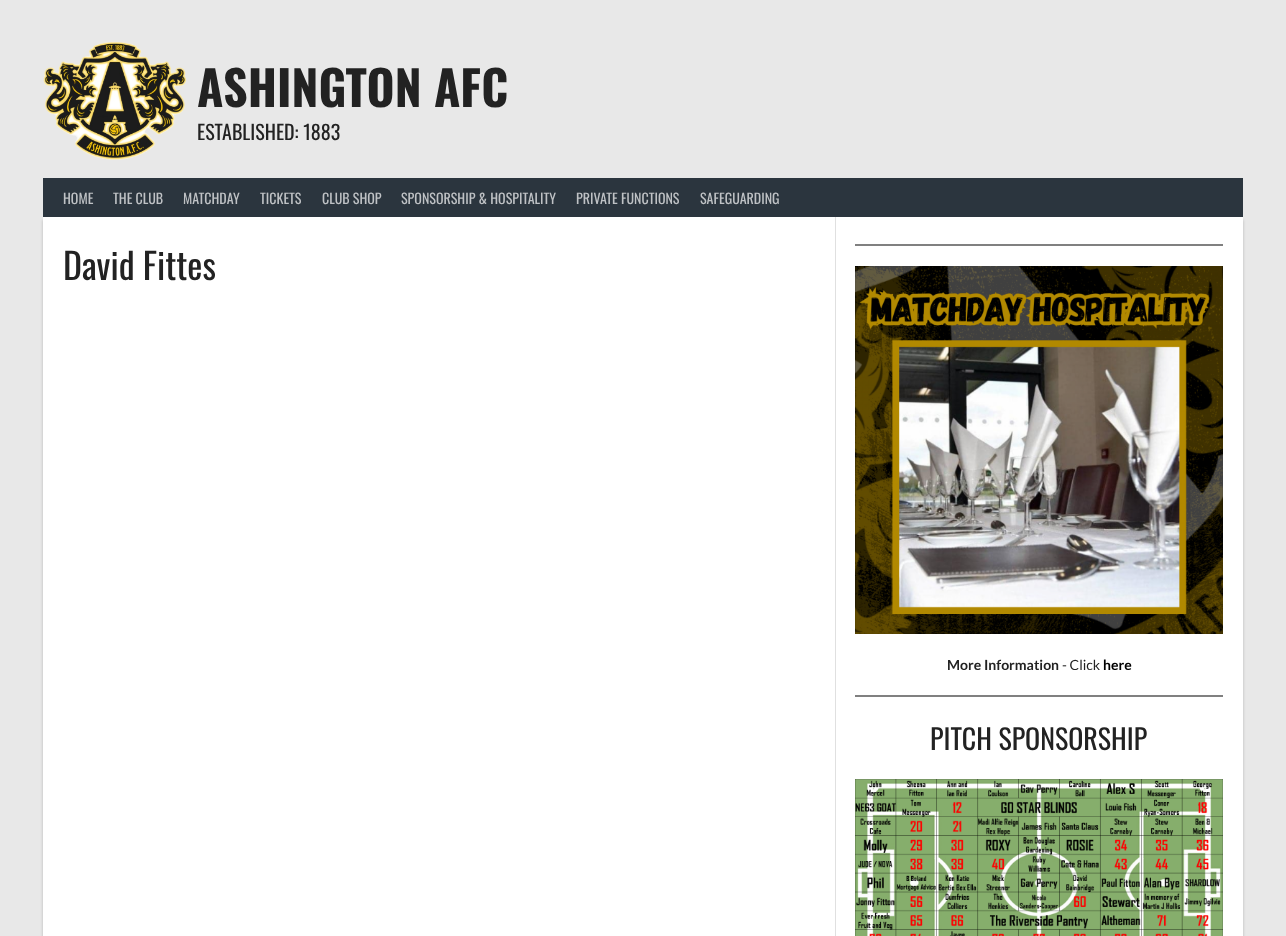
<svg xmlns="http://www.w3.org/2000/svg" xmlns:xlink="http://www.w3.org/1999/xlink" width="1286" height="936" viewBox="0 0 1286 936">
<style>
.cls-1{font:bold 48px Oswald;fill:#222222}
.cls-2{font:20px Oswald;fill:#222222}
.cls-3{font:14px Oswald;fill:#bfc2c5}
.cls-4{font:36px Oswald;fill:#222222}
.cls-5{font:bold 14px Lato;fill:#222222}
.cls-6{font:14px Lato;fill:#222222}
.cls-7{font:bold 14px Lato;fill:#000000}
.cls-8{font:28px Oswald;fill:#222222}
</style>
<rect width="100%" height="100%" fill="#e8e8e8"/>
<image xlink:href="image0.png" x="43" y="42" width="144" height="118"/>
<rect fill="#000000" fill-opacity="0.2" filter="blur(1.5px)" x="43" y="220" width="1200" height="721"/>
<rect fill="#2b353e" x="43" y="178" width="1200" height="39"/>
<rect fill="#ffffff" x="43" y="217" width="1200" height="719"/>
<rect fill="#e0e0e0" x="835" y="217" width="1" height="719"/>
<rect fill="#808080" x="855" y="244" width="368" height="2"/>
<image xlink:href="image1.png" x="855" y="266" width="368" height="368"/>
<rect fill="#808080" x="855" y="695" width="368" height="2"/>
<image xlink:href="image2.png" x="855" y="779" width="368" height="157"/>
<text class="cls-1" x="197" y="107">ASHINGTON AFC</text>
<text class="cls-2" x="197" y="140">ESTABLISHED: 1883</text>
<text class="cls-3" x="63" y="204">HOME</text>
<text class="cls-3" x="113" y="204">THE CLUB</text>
<text class="cls-3" x="183" y="204">MATCHDAY</text>
<text class="cls-3" x="260" y="204">TICKETS</text>
<text class="cls-3" x="322" y="204">CLUB SHOP</text>
<text class="cls-3" x="401" y="204">SPONSORSHIP &amp; HOSPITALITY</text>
<text class="cls-3" x="576" y="204">PRIVATE FUNCTIONS</text>
<text class="cls-3" x="700" y="204">SAFEGUARDING</text>
<text class="cls-4" x="63" y="280">David Fittes</text>
<text class="cls-5" x="947" y="670">More Information</text>
<text class="cls-6" x="1062" y="670">- Click</text>
<text class="cls-7" x="1103" y="670">here</text>
<text class="cls-8" x="930" y="750">PITCH SPONSORSHIP</text>
</svg>
